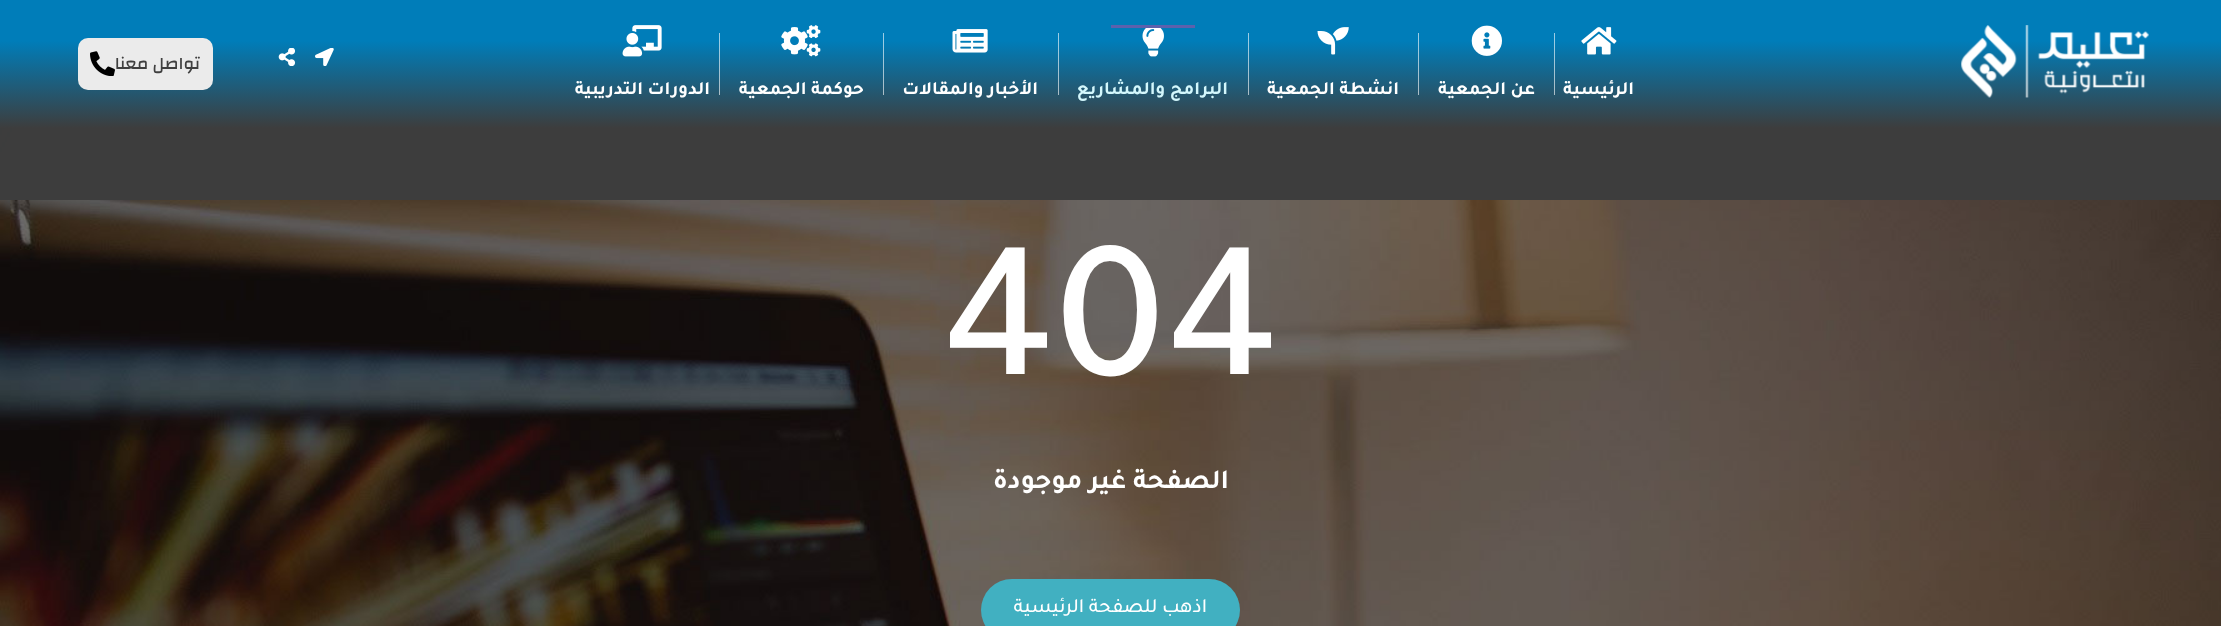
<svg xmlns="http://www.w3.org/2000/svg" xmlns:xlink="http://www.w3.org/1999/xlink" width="2221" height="626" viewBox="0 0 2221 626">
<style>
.cls-1{font:500 17.5px Changa;direction:rtl;fill:#3f3f3f}
.cls-2{font:bold 18.75px Tajawal;direction:rtl;fill:#ffffff}
.cls-3{font:bold 18.75px Tajawal;direction:rtl;fill:#d3f7fc}
.cls-4{font:500 200px Tajawal;fill:#ffffff}
.cls-5{font:bold 27.5px Tajawal;direction:rtl;fill:#ffffff}
.cls-6{font:500 20px Tajawal;direction:rtl;fill:#ffffff}
</style>
<defs>
<linearGradient id="g1" gradientUnits="userSpaceOnUse" x1="1111" y1="0" x2="1111" y2="128"><stop offset="0.32" stop-color="#007db9"/><stop offset="1" stop-color="#3d3d3d"/></linearGradient>
</defs>
<rect width="100%" height="100%" fill="#ffffff"/>
<image xlink:href="image0.png" x="0" y="128" width="183" height="72"/>
<rect fill="url(#g1)" x="0" y="0" width="2221" height="128"/>
<image xlink:href="image1.png" x="1961" y="25" width="188" height="73"/>
<image xlink:href="image2.png" x="315" y="48" width="19" height="18"/>
<image xlink:href="image3.png" x="278" y="48" width="18" height="18"/>
<rect fill="#ebebeb" x="78" y="38" width="135" height="52" rx="10"/>
<image xlink:href="image4.png" x="90" y="51" width="25" height="25"/>
<image xlink:href="image5.png" x="1581" y="27" width="36" height="28"/>
<rect fill="#ffffff" fill-opacity="0.61" x="1554" y="33" width="1" height="62"/>
<image xlink:href="image6.png" x="1471" y="25" width="31" height="31"/>
<rect fill="#ffffff" fill-opacity="0.61" x="1418" y="33" width="1" height="62"/>
<image xlink:href="image7.png" x="1317" y="27" width="32" height="28"/>
<rect fill="#ffffff" fill-opacity="0.61" x="1248" y="33" width="1" height="62"/>
<rect fill="#5c61ac" x="1111" y="25" width="84" height="3"/>
<image xlink:href="image8.png" x="1142" y="28" width="22" height="29"/>
<rect fill="#ffffff" fill-opacity="0.61" x="1058" y="33" width="1" height="62"/>
<image xlink:href="image9.png" x="952" y="29" width="36" height="24"/>
<rect fill="#ffffff" fill-opacity="0.61" x="883" y="33" width="1" height="62"/>
<image xlink:href="image10.png" x="781" y="25" width="40" height="32"/>
<rect fill="#ffffff" fill-opacity="0.61" x="719" y="33" width="1" height="62"/>
<image xlink:href="image11.png" x="622" y="25" width="40" height="32"/>
<rect fill="#252525" fill-opacity="0.89" x="0" y="128" width="2221" height="72"/>
<image xlink:href="image12.png" x="0" y="200" width="2221" height="426"/>
<rect fill="#41b0c1" x="981" y="579" width="259" height="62" rx="31"/>
<text class="cls-1" x="200" y="69">تواصل معنا</text>
<text class="cls-2" x="1634" y="94">الرئيسية</text>
<text class="cls-2" x="1535" y="94">عن الجمعية</text>
<text class="cls-2" x="1399" y="94">انشطة الجمعية</text>
<text class="cls-3" x="1228" y="94">البرامج والمشاريع</text>
<text class="cls-2" x="1038" y="94">الأخبار والمقالات</text>
<text class="cls-2" x="864" y="94">حوكمة الجمعية</text>
<text class="cls-2" x="710" y="94">الدورات التدريبية</text>
<text class="cls-4" x="943" y="374">404</text>
<text class="cls-5" x="1229" y="488">الصفحة غير موجودة</text>
<text class="cls-6" x="1207" y="612">اذهب للصفحة الرئيسية</text>
</svg>
